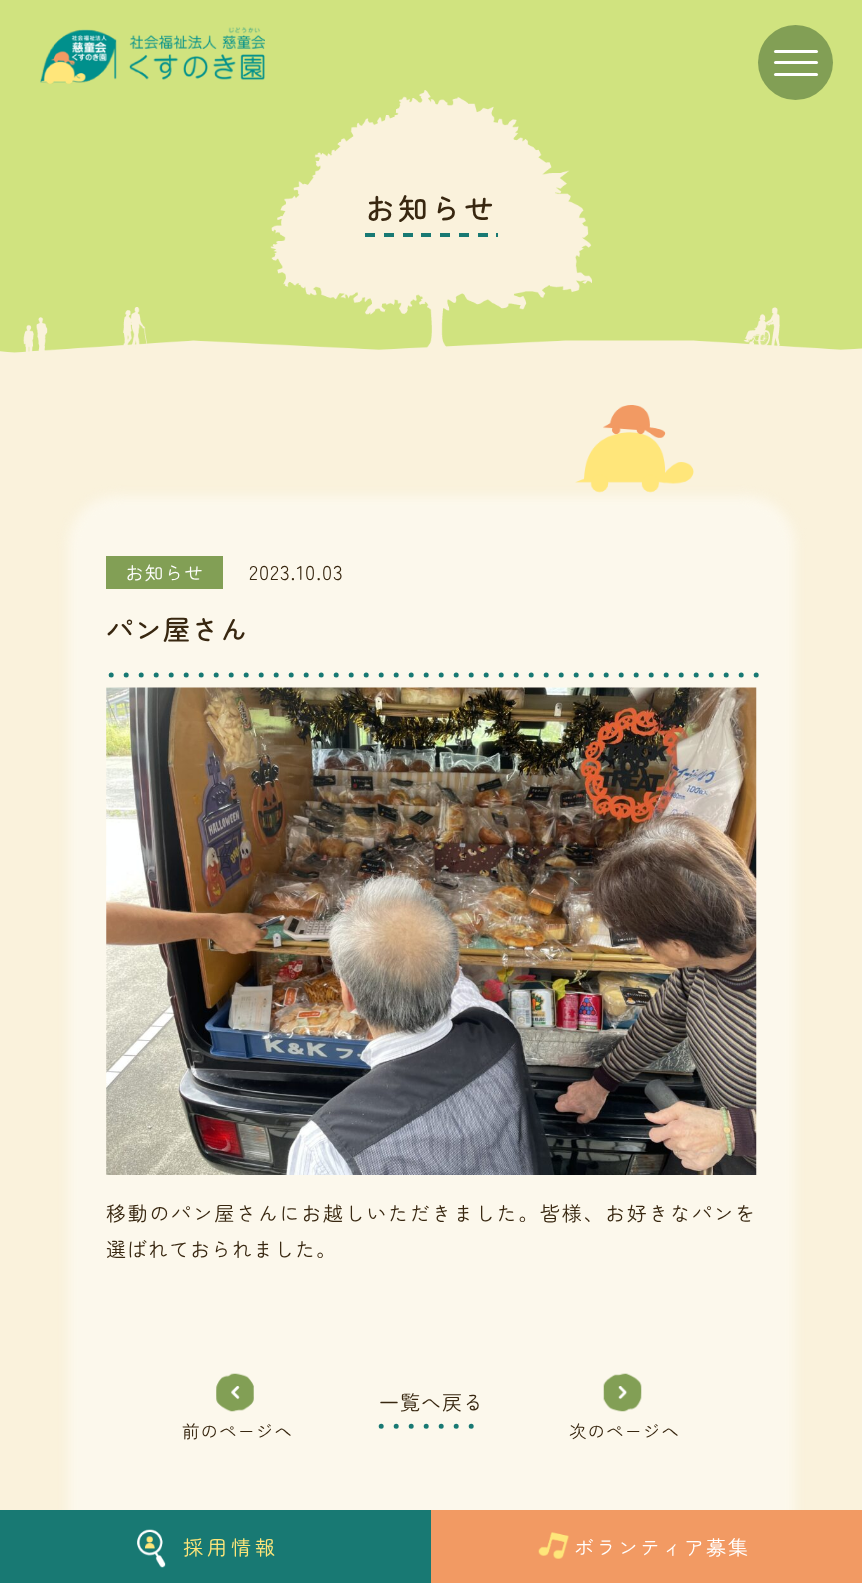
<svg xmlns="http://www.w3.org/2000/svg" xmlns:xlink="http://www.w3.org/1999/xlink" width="862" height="1583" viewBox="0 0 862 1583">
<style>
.cls-1{font:500 30px Zen Maru Gothic;letter-spacing:3px;fill:#382710}
.cls-2{font:18.75px Zen Maru Gothic;letter-spacing:1px;fill:#ffffff}
.cls-3{font:20px Zen Maru Gothic;letter-spacing:1px;fill:#382710}
.cls-4{font:500 27.5px Zen Maru Gothic;letter-spacing:1px;fill:#382710}
.cls-5{font:20px Zen Maru Gothic;letter-spacing:1.7px;fill:#382710}
.cls-6{font:17.5px Zen Maru Gothic;letter-spacing:1px;fill:#382710}
.cls-7{font:20px Zen Maru Gothic;letter-spacing:4px;fill:#ffe67a}
.cls-8{font:20px Zen Maru Gothic;letter-spacing:2px;fill:#ffffff}
</style>
<rect width="100%" height="100%" fill="#faf2dc"/>
<rect fill="#d0e37f" x="0" y="0" width="862" height="353"/>
<image xlink:href="image0.png" x="0" y="90" width="862" height="285"/>
<rect fill="#187973" x="365" y="233" width="10" height="4"/>
<rect fill="#187973" x="384" y="233" width="10" height="4"/>
<rect fill="#187973" x="403" y="233" width="10" height="4"/>
<rect fill="#187973" x="421" y="233" width="10" height="4"/>
<rect fill="#187973" x="440" y="233" width="10" height="4"/>
<rect fill="#187973" x="459" y="233" width="10" height="4"/>
<rect fill="#187973" x="478" y="233" width="10" height="4"/>
<rect fill="#187973" x="496" y="233" width="2" height="4"/>
<rect fill="#fcf8ec" filter="blur(6px)" x="68" y="496" width="727" height="1080" rx="50"/>
<image xlink:href="image1.png" x="575" y="405" width="119" height="88"/>
<rect fill="#829f55" x="106" y="556" width="117" height="33"/>
<path fill="none" stroke="#187973" stroke-width="5" stroke-linecap="round" stroke-dasharray="0 15" d="M111.2 675H756.5"/>
<image xlink:href="image2.png" x="106" y="687" width="651" height="488"/>
<path fill="none" stroke="#187973" stroke-width="5" stroke-linecap="round" stroke-dasharray="0 15" d="M381.2 1426.2H471.5"/>
<image xlink:href="image3.png" x="216" y="1373" width="38" height="39"/>
<image xlink:href="image4.png" x="603" y="1373" width="39" height="39"/>
<image xlink:href="image5.png" x="40" y="27" width="225" height="57"/>
<circle fill="#829f55" cx="795.5" cy="62.5" r="37.5"/>
<rect fill="#ffffff" x="774" y="50" width="44" height="3" rx="1.5"/>
<rect fill="#ffffff" x="774" y="61" width="44" height="3" rx="1.5"/>
<rect fill="#ffffff" x="774" y="73" width="44" height="3" rx="1.5"/>
<rect fill="#187973" x="0" y="1510" width="431" height="73"/>
<image xlink:href="image6.png" x="137" y="1529" width="29" height="39"/>
<rect fill="#f29a63" x="431" y="1510" width="431" height="73"/>
<image xlink:href="image7.png" x="538" y="1532" width="31" height="27"/>
<text class="cls-1" x="365" y="220">お知らせ</text>
<text class="cls-2" x="125" y="580">お知らせ</text>
<text class="cls-3" x="249" y="580">2023.10.03</text>
<text class="cls-4" x="106" y="640">パン屋さん</text>
<text class="cls-5" x="106" y="1221">移動のパン屋さんにお越しいただきました。皆様、お好きなパンを</text>
<text class="cls-3" x="106" y="1257">選ばれておられました。</text>
<text class="cls-3" x="379" y="1410">一覧へ戻る</text>
<text class="cls-6" x="182" y="1438">前のページへ</text>
<text class="cls-6" x="569" y="1438">次のページへ</text>
<text class="cls-7" x="183" y="1555">採用情報</text>
<text class="cls-8" x="574" y="1555">ボランティア募集</text>
</svg>
